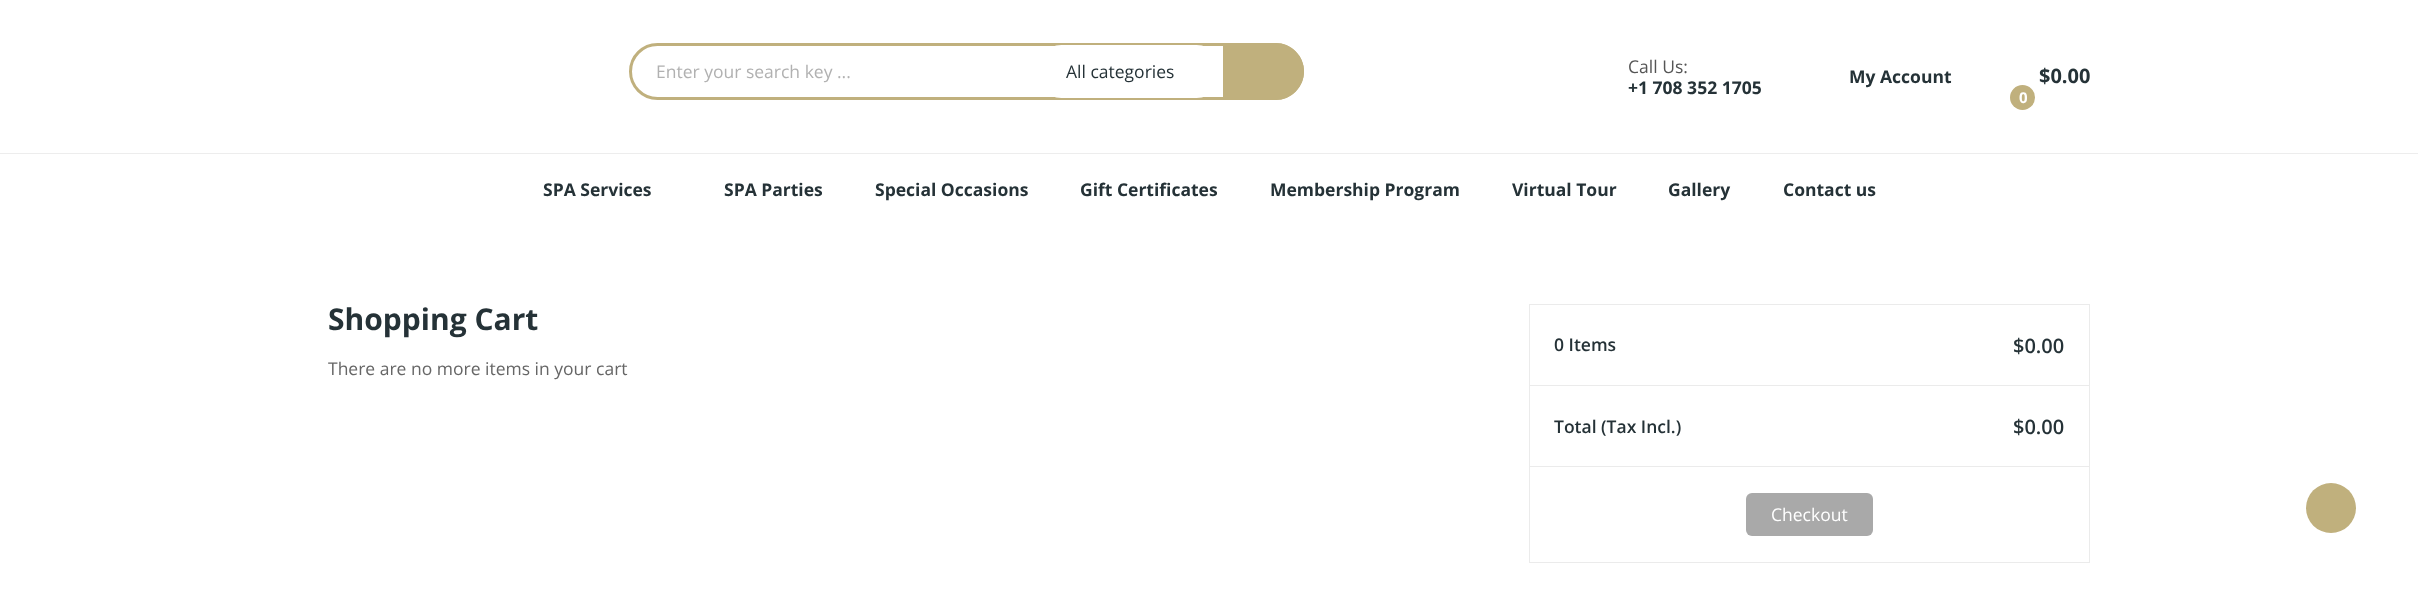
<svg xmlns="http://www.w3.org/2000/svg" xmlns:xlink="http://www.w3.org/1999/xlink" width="2418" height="594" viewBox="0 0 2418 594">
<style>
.cls-1{font:17.5px Open Sans;fill:#b1b1b1}
.cls-2{font:17.5px Open Sans;fill:#253237}
.cls-3{font:17.5px Open Sans;fill:#555555}
.cls-4{font:bold 17.5px Open Sans;fill:#253237}
.cls-5{font:bold 20px Open Sans;fill:#253237}
.cls-6{font:bold 15px Open Sans;fill:#ffffff}
.cls-7{font:bold 30px Open Sans;fill:#253237}
.cls-8{font:17.5px Open Sans;fill:#666666}
.cls-9{font:600 17.5px Open Sans;fill:#253237}
.cls-10{font:600 20px Open Sans;fill:#253237}
.cls-11{font:17.5px Open Sans;fill:#ffffff}
</style>
<rect width="100%" height="100%" fill="#ffffff"/>
<rect fill="none" stroke="#c0b07d" stroke-width="3" x="630.5" y="44.5" width="672" height="54" rx="27"/>
<rect fill="#ffffff" x="1035" y="45" width="188" height="53" rx="26.5"/>
<path fill="#c0b07d" d="M1223 43H1275.5C1291 43 1304 56 1304 71.5C1304 87 1291 100 1275.5 100H1223Z"/>
<circle fill="#c0b07d" cx="2022.5" cy="97.5" r="12.5"/>
<rect fill="#ededed" x="0" y="153" width="2418" height="1"/>
<rect fill="none" stroke="#ebebeb" x="1529.5" y="304.5" width="560" height="258"/>
<rect fill="#ebebeb" x="1530" y="385" width="559" height="1"/>
<rect fill="#ebebeb" x="1530" y="466" width="559" height="1"/>
<rect fill="#a9a9a9" x="1746" y="493" width="127" height="43" rx="6"/>
<circle fill="#c0b07d" cx="2331" cy="508" r="25"/>
<text class="cls-1" x="656" y="78">Enter your search key ...</text>
<text class="cls-2" x="1066" y="78">All categories</text>
<text class="cls-3" x="1628" y="73">Call Us:</text>
<text class="cls-4" x="1628" y="94">+1 708 352 1705</text>
<text class="cls-4" x="1849" y="83">My Account</text>
<text class="cls-5" x="2039" y="83">$0.00</text>
<text class="cls-6" x="2019" y="103">0</text>
<text class="cls-4" x="543" y="196">SPA Services</text>
<text class="cls-4" x="724" y="196">SPA Parties</text>
<text class="cls-4" x="875" y="196">Special Occasions</text>
<text class="cls-4" x="1080" y="196">Gift Certificates</text>
<text class="cls-4" x="1270" y="196">Membership Program</text>
<text class="cls-4" x="1512" y="196">Virtual Tour</text>
<text class="cls-4" x="1668" y="196">Gallery</text>
<text class="cls-4" x="1783" y="196">Contact us</text>
<text class="cls-7" x="328" y="330">Shopping Cart</text>
<text class="cls-8" x="328" y="375">There are no more items in your cart</text>
<text class="cls-9" x="1554" y="351">0 Items</text>
<text class="cls-10" x="2013" y="353">$0.00</text>
<text class="cls-9" x="1554" y="433">Total (Tax Incl.)</text>
<text class="cls-10" x="2013" y="434">$0.00</text>
<text class="cls-11" x="1771" y="521">Checkout</text>
</svg>
